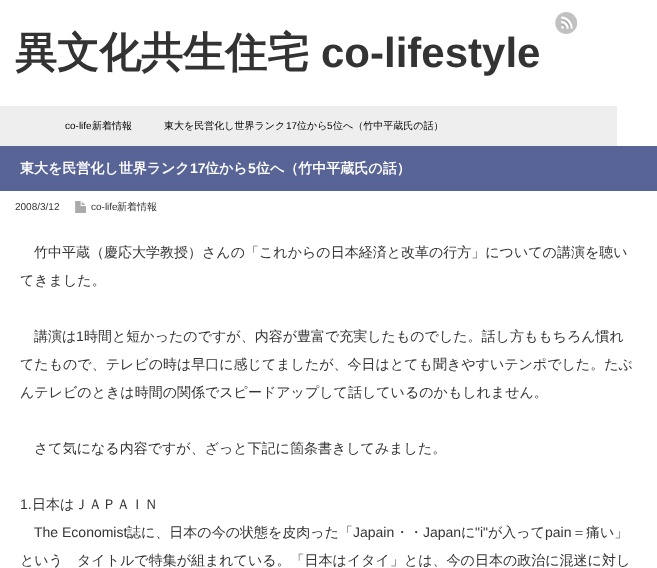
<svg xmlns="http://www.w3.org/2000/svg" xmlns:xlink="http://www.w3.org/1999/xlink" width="657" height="568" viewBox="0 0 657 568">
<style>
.cls-1{font:bold 42px WenQuanYi Zen Hei;fill:#333333}
.cls-2{font:bold 42px Liberation Sans;fill:#333333}
.cls-3{font:10px Liberation Sans;fill:#000000}
.cls-4{font:500 10px WenQuanYi Zen Hei;fill:#000000}
.cls-5{font:bold 14px WenQuanYi Zen Hei;fill:#ffffff}
.cls-6{font:bold 14px Liberation Sans;fill:#ffffff}
.cls-7{font:10px Liberation Sans;fill:#333333}
.cls-8{font:500 10px WenQuanYi Zen Hei;fill:#333333}
.cls-9{font:500 14px WenQuanYi Zen Hei;fill:#333333}
.cls-10{font:14px Liberation Sans;fill:#333333}
</style>
<rect width="100%" height="100%" fill="#ffffff"/>
<image xlink:href="image0.png" x="555" y="12" width="22" height="22"/>
<rect fill="#eeeeee" x="0" y="106" width="617" height="40"/>
<rect fill="#576495" x="0" y="146" width="657" height="45"/>
<image xlink:href="image1.png" x="75" y="201" width="11" height="12"/>
<text class="cls-1" x="15" y="67">異文化共生住宅</text>
<text class="cls-2" x="321" y="67">co-lifestyle</text>
<text class="cls-3" x="65" y="129">co-life</text>
<text class="cls-4" x="92" y="129">新着情報</text>
<text class="cls-4" x="164" y="129">東大を民営化し世界ランク</text>
<text class="cls-3" x="286" y="129">17</text>
<text class="cls-4" x="297" y="129">位から</text>
<text class="cls-3" x="327" y="129">5</text>
<text class="cls-4" x="333" y="129">位へ（竹中平蔵氏の話）</text>
<text class="cls-5" x="20" y="173">東大を民営化し世界ランク</text>
<text class="cls-6" x="190" y="173">17</text>
<text class="cls-5" x="205" y="173">位から</text>
<text class="cls-6" x="248" y="173">5</text>
<text class="cls-5" x="256" y="173">位へ（竹中平蔵氏の話）</text>
<text class="cls-7" x="15" y="210">2008/3/12</text>
<text class="cls-7" x="91" y="210">co-life</text>
<text class="cls-8" x="117" y="210">新着情報</text>
<text class="cls-9" x="34" y="257">竹中平蔵（慶応大学教授）さんの「これからの日本経済と改革の行方」についての講演を聴い</text>
<text class="cls-9" x="20" y="285">てきました。</text>
<text class="cls-9" x="34" y="341">講演は</text>
<text class="cls-10" x="76" y="341">1</text>
<text class="cls-9" x="84" y="341">時間と短かったのですが、内容が豊富で充実したものでした。話し方ももちろん慣れ</text>
<text class="cls-9" x="20" y="369">てたもので、テレビの時は早口に感じてましたが、今日はとても聞きやすいテンポでした。たぶ</text>
<text class="cls-9" x="20" y="397">んテレビのときは時間の関係でスピードアップして話しているのかもしれません。</text>
<text class="cls-9" x="34" y="453">さて気になる内容ですが、ざっと下記に箇条書きしてみました。</text>
<text class="cls-10" x="20" y="509">1.</text>
<text class="cls-9" x="32" y="509">日本はＪＡＰＡＩＮ</text>
<text class="cls-10" x="34" y="537">The Economist</text>
<text class="cls-9" x="127" y="537">誌に、日本の今の状態を皮肉った「</text>
<text class="cls-10" x="353" y="537">Japain</text>
<text class="cls-9" x="395" y="537">・・</text>
<text class="cls-10" x="423" y="537">Japan</text>
<text class="cls-9" x="461" y="537">に</text>
<text class="cls-10" x="475" y="537">"i"</text>
<text class="cls-9" x="488" y="537">が入って</text>
<text class="cls-10" x="545" y="537">pain</text>
<text class="cls-9" x="572" y="537">＝痛い」</text>
<text class="cls-9" x="20" y="565">という　タイトルで特集が組まれている。「日本はイタイ」とは、今の日本の政治に混迷に対し</text>
</svg>
